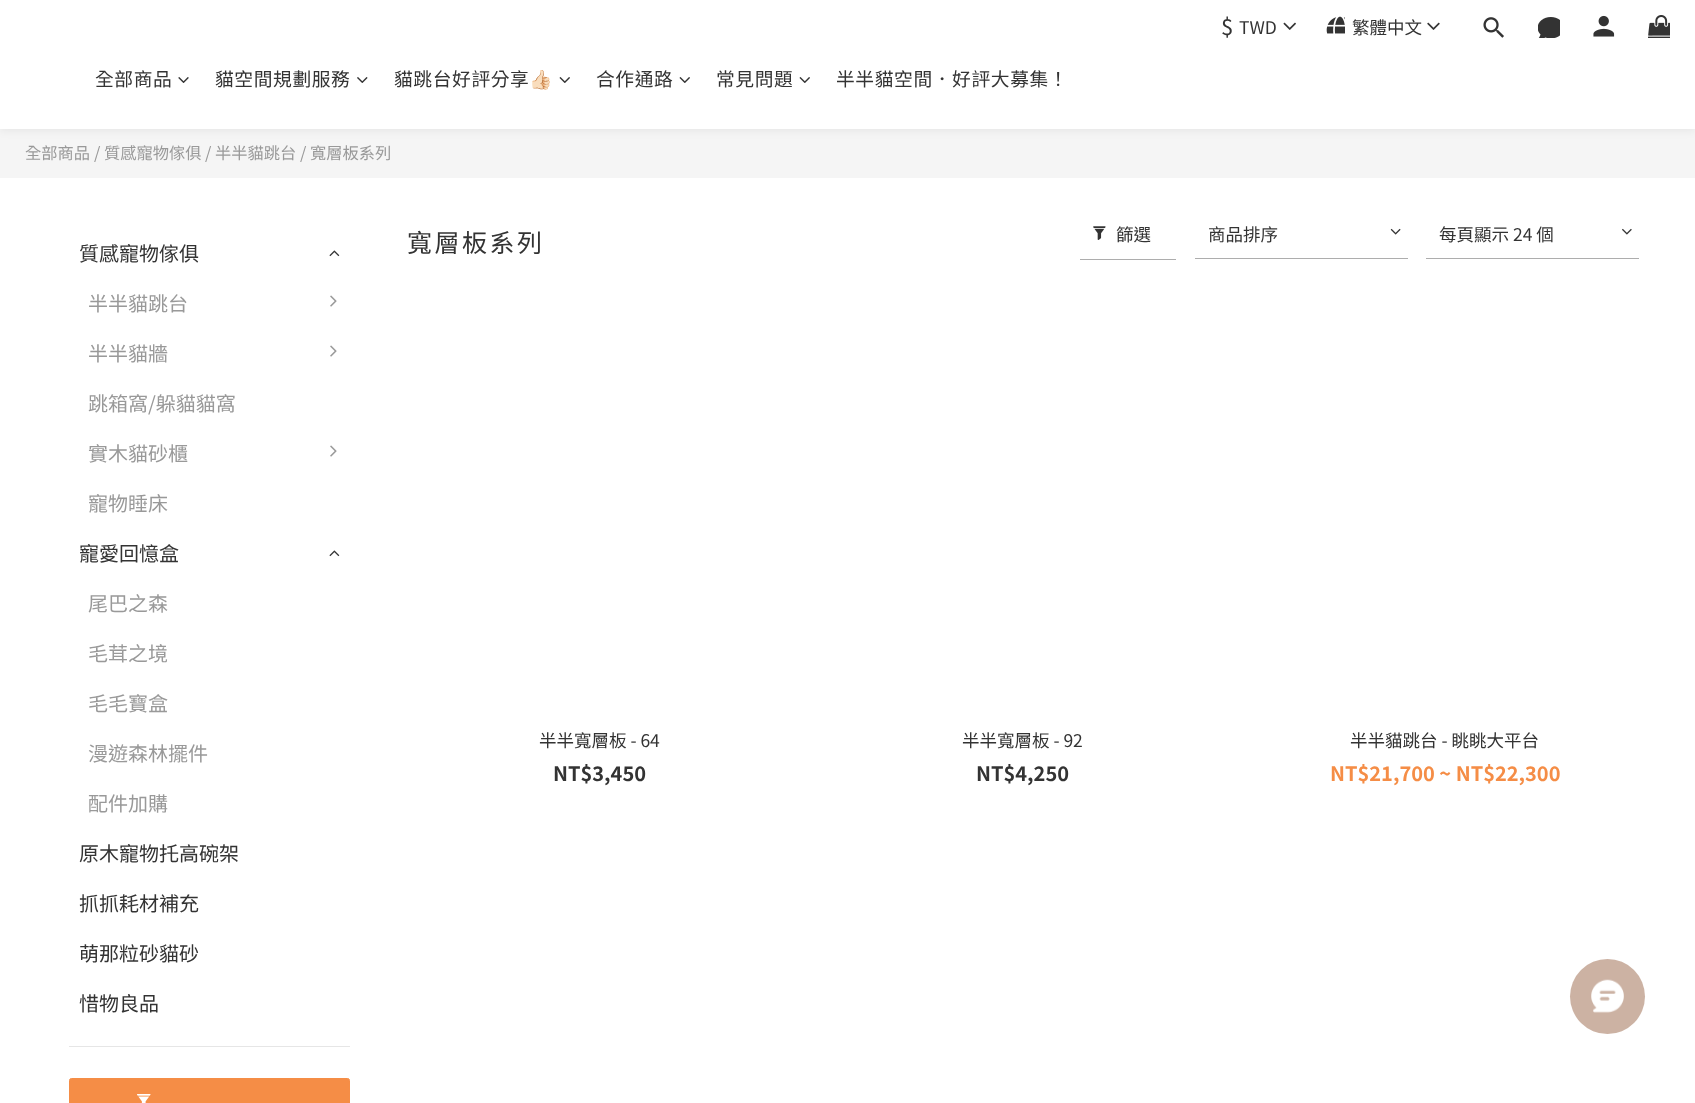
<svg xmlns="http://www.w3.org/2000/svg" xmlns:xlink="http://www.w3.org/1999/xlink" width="1695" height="1103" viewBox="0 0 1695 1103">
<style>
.cls-1{font:22px Noto Sans TC;letter-spacing:1px;fill:#333333}
.cls-2{font:17.5px Noto Sans TC;fill:#333333}
.cls-3{font:18.75px Noto Sans TC;letter-spacing:0.6px;fill:#333333}
.cls-4{font:18.75px Noto Color Emoji;letter-spacing:0.6px;fill:#333333}
.cls-5{font:16.25px Noto Sans TC;fill:#999999}
.cls-6{font:20px Noto Sans TC;fill:#333333}
.cls-7{font:20px Noto Sans TC;fill:#999999}
.cls-8{font:25px Noto Sans TC;letter-spacing:2.5px;fill:#333333}
.cls-9{font:bold 20px Noto Sans TC;fill:#333333}
.cls-10{font:bold 20px Noto Sans TC;fill:#f58d46}
</style>
<rect width="100%" height="100%" fill="#ffffff"/>
<rect fill="#f5f5f5" x="0" y="129" width="1695" height="49"/>
<rect fill="#000000" fill-opacity="0.06" filter="blur(4px)" x="0" y="3" width="1695" height="128"/>
<rect fill="#ffffff" x="0" y="0" width="1695" height="129"/>
<image xlink:href="image0.png" x="1283" y="22" width="13" height="8"/>
<image xlink:href="image1.png" x="1326" y="16" width="19" height="18"/>
<image xlink:href="image2.png" x="1427" y="22" width="13" height="8"/>
<image xlink:href="image3.png" x="1483" y="17" width="21" height="21"/>
<image xlink:href="image4.png" x="1538" y="17" width="22" height="21"/>
<image xlink:href="image5.png" x="1593" y="15" width="22" height="22"/>
<image xlink:href="image6.png" x="1648" y="15" width="22" height="23"/>
<image xlink:href="image7.png" x="178" y="77" width="11" height="6"/>
<image xlink:href="image8.png" x="357" y="77" width="11" height="6"/>
<image xlink:href="image9.png" x="559" y="77" width="11" height="6"/>
<image xlink:href="image9.png" x="679" y="77" width="11" height="6"/>
<image xlink:href="image9.png" x="799" y="77" width="11" height="6"/>
<image xlink:href="image10.png" x="329" y="250" width="11" height="7"/>
<image xlink:href="image11.png" x="330" y="295" width="7" height="12"/>
<image xlink:href="image11.png" x="330" y="345" width="7" height="12"/>
<image xlink:href="image11.png" x="330" y="445" width="7" height="12"/>
<image xlink:href="image10.png" x="329" y="550" width="11" height="7"/>
<rect fill="#e6e6e6" x="69" y="1046" width="281" height="1"/>
<rect fill="#f58d46" stroke="#f58d46" x="69.5" y="1078.5" width="280" height="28" rx="2"/>
<image xlink:href="image12.png" x="137" y="1094" width="14" height="9"/>
<rect fill="#adadad" x="1080" y="259" width="96" height="1"/>
<image xlink:href="image13.png" x="1093" y="226" width="13" height="14"/>
<rect fill="#adadad" x="1195" y="258" width="213" height="1"/>
<image xlink:href="image14.png" x="1390" y="228" width="11" height="7"/>
<rect fill="#adadad" x="1426" y="258" width="213" height="1"/>
<image xlink:href="image15.png" x="1622" y="228" width="10" height="7"/>
<circle fill="#ccb2a3" cx="1607.5" cy="996.5" r="37.5"/>
<image xlink:href="image16.png" x="1591" y="979" width="33" height="34"/>
<text class="cls-1" x="1221" y="35">$</text>
<text class="cls-2" x="1239" y="34">TWD</text>
<text class="cls-2" x="1352" y="34">繁體中文</text>
<text class="cls-3" x="95" y="86">全部商品</text>
<text class="cls-3" x="215" y="86">貓空間規劃服務</text>
<text class="cls-3" x="394" y="86">貓跳台好評分享</text>
<text class="cls-4" x="529" y="86">👍🏻</text>
<text class="cls-3" x="596" y="86">合作通路</text>
<text class="cls-3" x="716" y="86">常見問題</text>
<text class="cls-3" x="836" y="86">半半貓空間．好評大募集！</text>
<text class="cls-5" x="25" y="159">全部商品</text>
<text class="cls-5" x="94" y="159">/ 質感寵物傢俱</text>
<text class="cls-5" x="205" y="159">/ 半半貓跳台</text>
<text class="cls-5" x="300" y="159">/ 寬層板系列</text>
<text class="cls-6" x="79" y="261">質感寵物傢俱</text>
<text class="cls-7" x="88" y="311">半半貓跳台</text>
<text class="cls-7" x="88" y="361">半半貓牆</text>
<text class="cls-7" x="88" y="411">跳箱窩/躲貓貓窩</text>
<text class="cls-7" x="88" y="461">實木貓砂櫃</text>
<text class="cls-7" x="88" y="511">寵物睡床</text>
<text class="cls-6" x="79" y="561">寵愛回憶盒</text>
<text class="cls-7" x="88" y="611">尾巴之森</text>
<text class="cls-7" x="88" y="661">毛茸之境</text>
<text class="cls-7" x="88" y="711">毛毛寶盒</text>
<text class="cls-7" x="88" y="761">漫遊森林擺件</text>
<text class="cls-7" x="88" y="811">配件加購</text>
<text class="cls-6" x="79" y="861">原木寵物托高碗架</text>
<text class="cls-6" x="79" y="911">抓抓耗材補充</text>
<text class="cls-6" x="79" y="961">萌那粒砂貓砂</text>
<text class="cls-6" x="79" y="1011">惜物良品</text>
<text class="cls-8" x="407" y="252">寬層板系列</text>
<text class="cls-2" x="1116" y="241">篩選</text>
<text class="cls-2" x="1208" y="241">商品排序</text>
<text class="cls-2" x="1439" y="241">每頁顯示 24 個</text>
<text class="cls-2" x="539" y="747">半半寬層板 - 64</text>
<text class="cls-9" x="553" y="781">NT$3,450</text>
<text class="cls-2" x="962" y="747">半半寬層板 - 92</text>
<text class="cls-9" x="976" y="781">NT$4,250</text>
<text class="cls-2" x="1350" y="747">半半貓跳台 - 眺眺大平台</text>
<text class="cls-10" x="1330" y="781">NT$21,700 ~ NT$22,300</text>
</svg>
